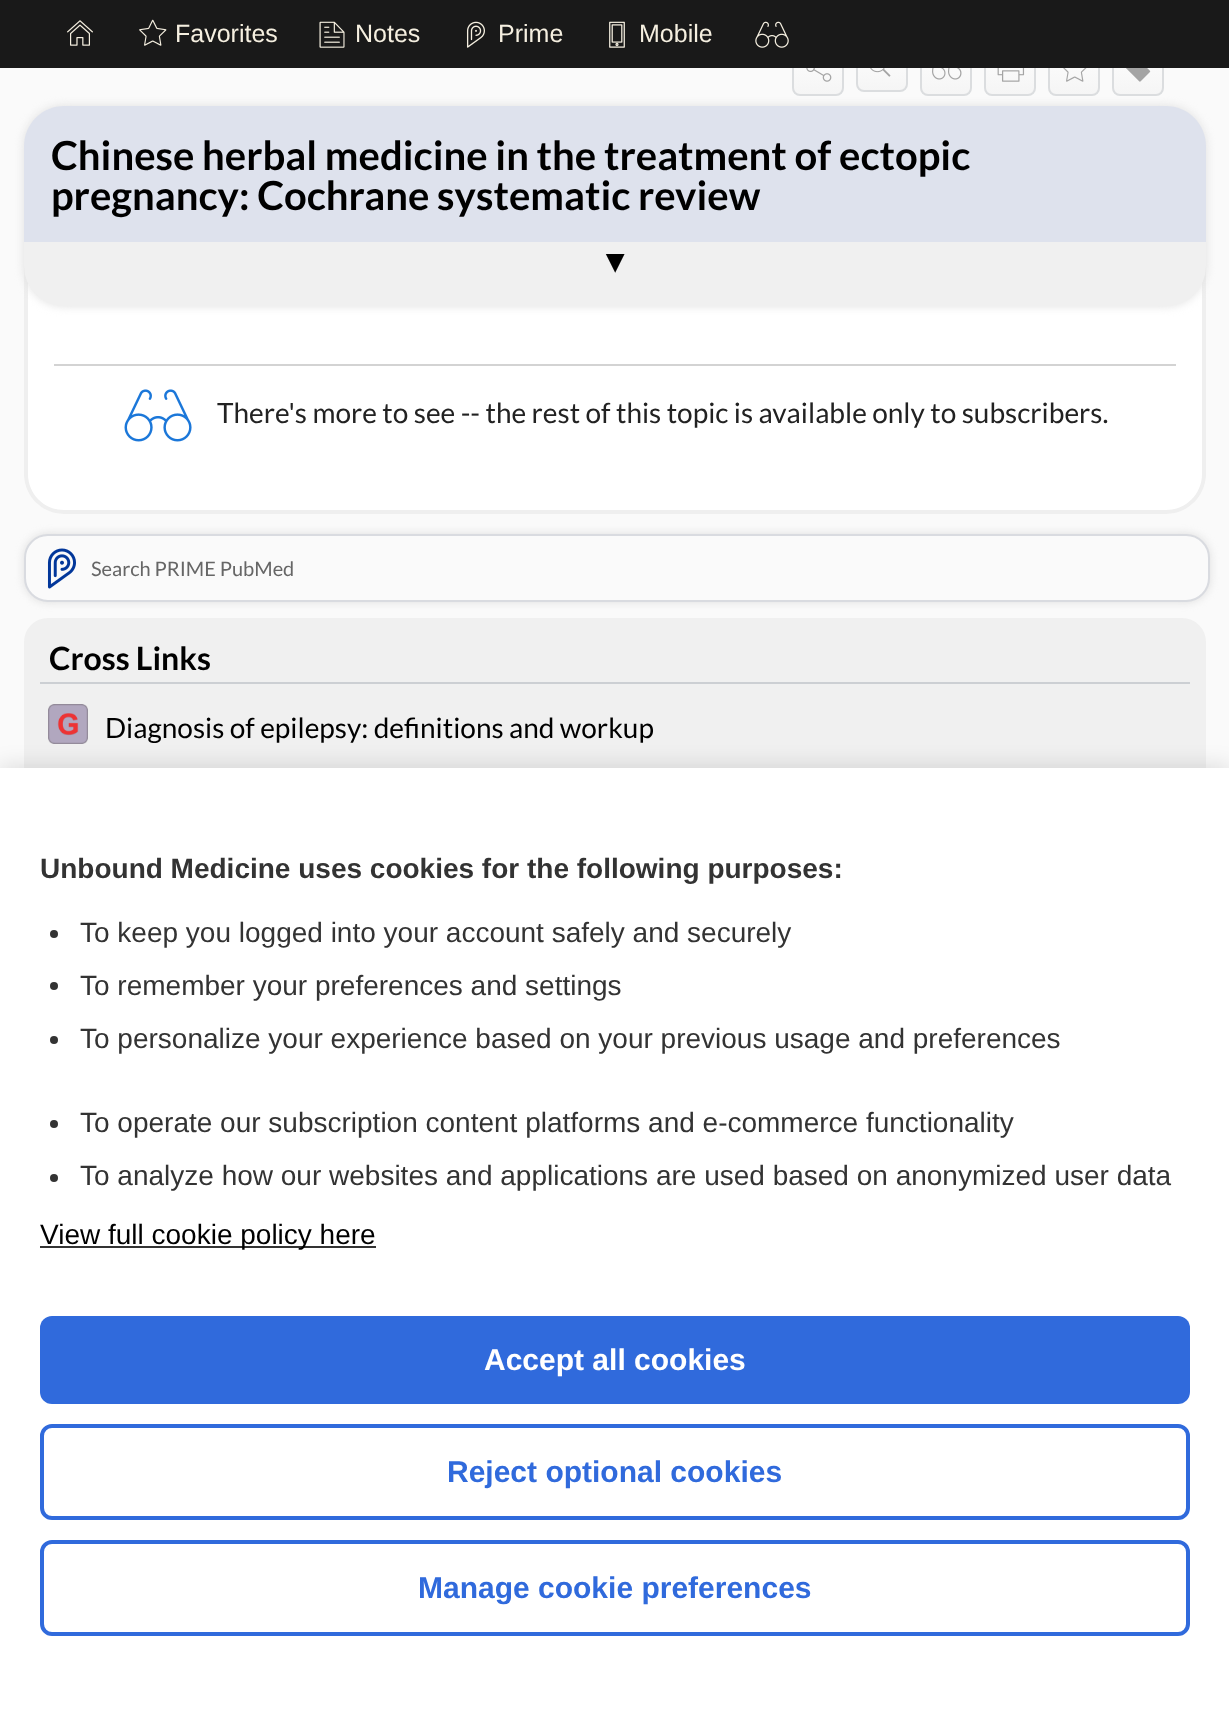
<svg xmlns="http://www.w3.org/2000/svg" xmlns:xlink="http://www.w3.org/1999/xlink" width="1229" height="1715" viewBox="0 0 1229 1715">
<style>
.cls-1{font:25px Liberation Sans;fill:#f5efe0}
.cls-2{font:bold 40px Lato;fill:#000000}
.cls-3{font:32px Liberation Serif;fill:#000000}
.cls-4{font:28px Lato;fill:#222222}
.cls-5{font:20px Lato;fill:#666666}
.cls-6{font:bold 32px Lato;fill:#000000}
.cls-7{font:28px Lato;fill:#000000}
.cls-8{font:bold 28px Liberation Sans;fill:#333333}
.cls-9{font:28px Liberation Sans;fill:#333333}
.cls-10{font:28px Liberation Sans;fill:#000000}
.cls-11{font:bold 30px Liberation Sans;fill:#ffffff}
.cls-12{font:bold 30px Liberation Sans;fill:#306adc}
</style>
<defs>
<clipPath id="clip1"><rect x="792" y="40" width="52" height="56" rx="8"/></clipPath>
<linearGradient id="g1" gradientUnits="userSpaceOnUse" x1="818" y1="42" x2="818" y2="94"><stop offset="0" stop-color="#ffffff"/><stop offset="1" stop-color="#f5f5f5"/></linearGradient>
<clipPath id="clip2"><rect x="856" y="40" width="52" height="52" rx="8"/></clipPath>
<linearGradient id="g2" gradientUnits="userSpaceOnUse" x1="882" y1="42" x2="882" y2="90"><stop offset="0" stop-color="#ffffff"/><stop offset="1" stop-color="#f5f5f5"/></linearGradient>
<clipPath id="clip3"><rect x="920" y="40" width="52" height="56" rx="8"/></clipPath>
<linearGradient id="g3" gradientUnits="userSpaceOnUse" x1="946" y1="42" x2="946" y2="94"><stop offset="0" stop-color="#ffffff"/><stop offset="1" stop-color="#f5f5f5"/></linearGradient>
<clipPath id="clip4"><rect x="984" y="40" width="52" height="56" rx="8"/></clipPath>
<linearGradient id="g4" gradientUnits="userSpaceOnUse" x1="1010" y1="42" x2="1010" y2="94"><stop offset="0" stop-color="#ffffff"/><stop offset="1" stop-color="#f5f5f5"/></linearGradient>
<clipPath id="clip5"><rect x="1048" y="40" width="52" height="56" rx="8"/></clipPath>
<linearGradient id="g5" gradientUnits="userSpaceOnUse" x1="1074" y1="42" x2="1074" y2="94"><stop offset="0" stop-color="#ffffff"/><stop offset="1" stop-color="#f5f5f5"/></linearGradient>
<clipPath id="clip6"><rect x="1112" y="40" width="52" height="56" rx="8"/></clipPath>
<linearGradient id="g6" gradientUnits="userSpaceOnUse" x1="1138" y1="42" x2="1138" y2="94"><stop offset="0" stop-color="#ffffff"/><stop offset="1" stop-color="#f5f5f5"/></linearGradient>
</defs>
<rect width="100%" height="100%" fill="#fafafa"/>
<g clip-path="url(#clip1)">
<rect fill="url(#g1)" x="792" y="68" width="52" height="26"/>
</g>
<rect fill="none" stroke="#dbdddf" stroke-width="2" x="793" y="41" width="50" height="54" rx="7"/>
<g clip-path="url(#clip2)">
<rect fill="url(#g2)" x="856" y="68" width="52" height="22"/>
</g>
<rect fill="none" stroke="#dbdddf" stroke-width="2" x="857" y="41" width="50" height="50" rx="7"/>
<g clip-path="url(#clip3)">
<rect fill="url(#g3)" x="920" y="68" width="52" height="26"/>
</g>
<rect fill="none" stroke="#dbdddf" stroke-width="2" x="921" y="41" width="50" height="54" rx="7"/>
<g clip-path="url(#clip4)">
<rect fill="url(#g4)" x="984" y="68" width="52" height="26"/>
</g>
<rect fill="none" stroke="#dbdddf" stroke-width="2" x="985" y="41" width="50" height="54" rx="7"/>
<g clip-path="url(#clip5)">
<rect fill="url(#g5)" x="1048" y="68" width="52" height="26"/>
</g>
<rect fill="none" stroke="#dbdddf" stroke-width="2" x="1049" y="41" width="50" height="54" rx="7"/>
<g clip-path="url(#clip6)">
<rect fill="url(#g6)" x="1112" y="68" width="52" height="26"/>
</g>
<rect fill="none" stroke="#dbdddf" stroke-width="2" x="1113" y="41" width="50" height="54" rx="7"/>
<rect fill="#191919" x="0" y="0" width="1229" height="68"/>
<image xlink:href="image0.png" x="67" y="20" width="26" height="26"/>
<image xlink:href="image1.png" x="139" y="19" width="28" height="27"/>
<image xlink:href="image2.png" x="319" y="21" width="26" height="27"/>
<image xlink:href="image3.png" x="466" y="21" width="19" height="27"/>
<image xlink:href="image4.png" x="609" y="21" width="16" height="27"/>
<image xlink:href="image5.png" x="755" y="21" width="34" height="27"/>
<path fill="#ffffff" d="M24 260H1206V474C1206 496 1188 514 1166 514H64C42 514 24 496 24 474Z"/>
<path fill="#efefef" fill-rule="evenodd" d="M24 260H1206V474C1206 496 1188 514 1166 514H64C42 514 24 496 24 474ZM28 260H1202V474C1202 494 1186 510 1166 510H64C44 510 28 494 28 474Z"/>
<rect fill="#e0e0e0" filter="blur(5px)" x="24" y="106" width="1182" height="200" rx="40"/>
<rect fill="#f0f0f0" x="24" y="106" width="1182" height="200" rx="40"/>
<path fill="#dee2ed" d="M64 106H1166C1188 106 1206 124 1206 146V242H24V146C24 124 42 106 64 106Z"/>
<image xlink:href="image6.png" x="806" y="68" width="26" height="14"/>
<image xlink:href="image7.png" x="870" y="68" width="21" height="9"/>
<image xlink:href="image8.png" x="932" y="68" width="30" height="12"/>
<image xlink:href="image9.png" x="997" y="68" width="28" height="14"/>
<image xlink:href="image10.png" x="1063" y="68" width="24" height="14"/>
<image xlink:href="image11.png" x="1126" y="68" width="25" height="14"/>
<rect fill="#d3d3d3" x="54" y="364" width="1122" height="2"/>
<image xlink:href="image12.png" x="124" y="389" width="68" height="53"/>
<rect fill="#dddddd" filter="blur(4px)" x="24" y="534" width="1186" height="68" rx="24"/>
<rect fill="#fafafa" stroke="#d9dbe0" stroke-width="2" x="25" y="535" width="1184" height="66" rx="23"/>
<image xlink:href="image13.png" x="47" y="548" width="29" height="41"/>
<rect fill="#f0f0f0" x="24" y="618" width="1182" height="314" rx="24"/>
<rect fill="#cccfd3" x="40" y="682" width="1150" height="2"/>
<image xlink:href="image14.png" x="48" y="704" width="40" height="40"/>
<rect fill="#000000" fill-opacity="0.1" filter="blur(10px)" x="0" y="764" width="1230" height="948"/>
<rect fill="#ffffff" x="0" y="768" width="1229" height="947"/>
<circle fill="#333333" cx="54" cy="934" r="4"/>
<circle fill="#333333" cx="54" cy="986" r="4"/>
<circle fill="#333333" cx="54" cy="1040" r="4"/>
<circle fill="#333333" cx="54" cy="1124" r="4"/>
<circle fill="#333333" cx="54" cy="1178" r="4"/>
<rect fill="#333333" x="40" y="1246" width="336" height="2"/>
<rect fill="#306adc" x="40" y="1316" width="1150" height="88" rx="12"/>
<rect fill="none" stroke="#306adc" stroke-width="4" x="42" y="1426" width="1146" height="92" rx="10"/>
<rect fill="none" stroke="#306adc" stroke-width="4" x="42" y="1542" width="1146" height="92" rx="10"/>
<text class="cls-1" x="175" y="42">Favorites</text>
<text class="cls-1" x="355" y="42">Notes</text>
<text class="cls-1" x="498" y="42">Prime</text>
<text class="cls-1" x="639" y="42">Mobile</text>
<text class="cls-2"><tspan x="51" y="170">Chinese herbal medicine in the treatment of ectopic</tspan><tspan x="51" y="210">pregnancy: Cochrane systematic review</tspan></text>
<text class="cls-3" x="631" y="254" transform="rotate(180 631 254)">▲</text>
<text class="cls-4" x="217" y="423">There's more to see -- the rest of this topic is available only to subscribers.</text>
<text class="cls-5" x="91" y="576">Search PRIME PubMed</text>
<text class="cls-6" x="49" y="670">Cross Links</text>
<text class="cls-7" x="105" y="738">Diagnosis of epilepsy: definitions and workup</text>
<text class="cls-8" x="40" y="878">Unbound Medicine uses cookies for the following purposes:</text>
<text class="cls-9"><tspan x="80" y="942">To keep you logged into your account safely and securely</tspan><tspan x="80" y="995">To remember your preferences and settings</tspan><tspan x="80" y="1048">To personalize your experience based on your previous usage and preferences</tspan></text>
<text class="cls-9"><tspan x="80" y="1132">To operate our subscription content platforms and e-commerce functionality</tspan><tspan x="80" y="1185">To analyze how our websites and applications are used based on anonymized user data</tspan></text>
<text class="cls-10" x="40" y="1244">View full cookie policy here</text>
<text class="cls-11" x="484" y="1370">Accept all cookies</text>
<text class="cls-12" x="447" y="1482">Reject optional cookies</text>
<text class="cls-12" x="418" y="1598">Manage cookie preferences</text>
</svg>
